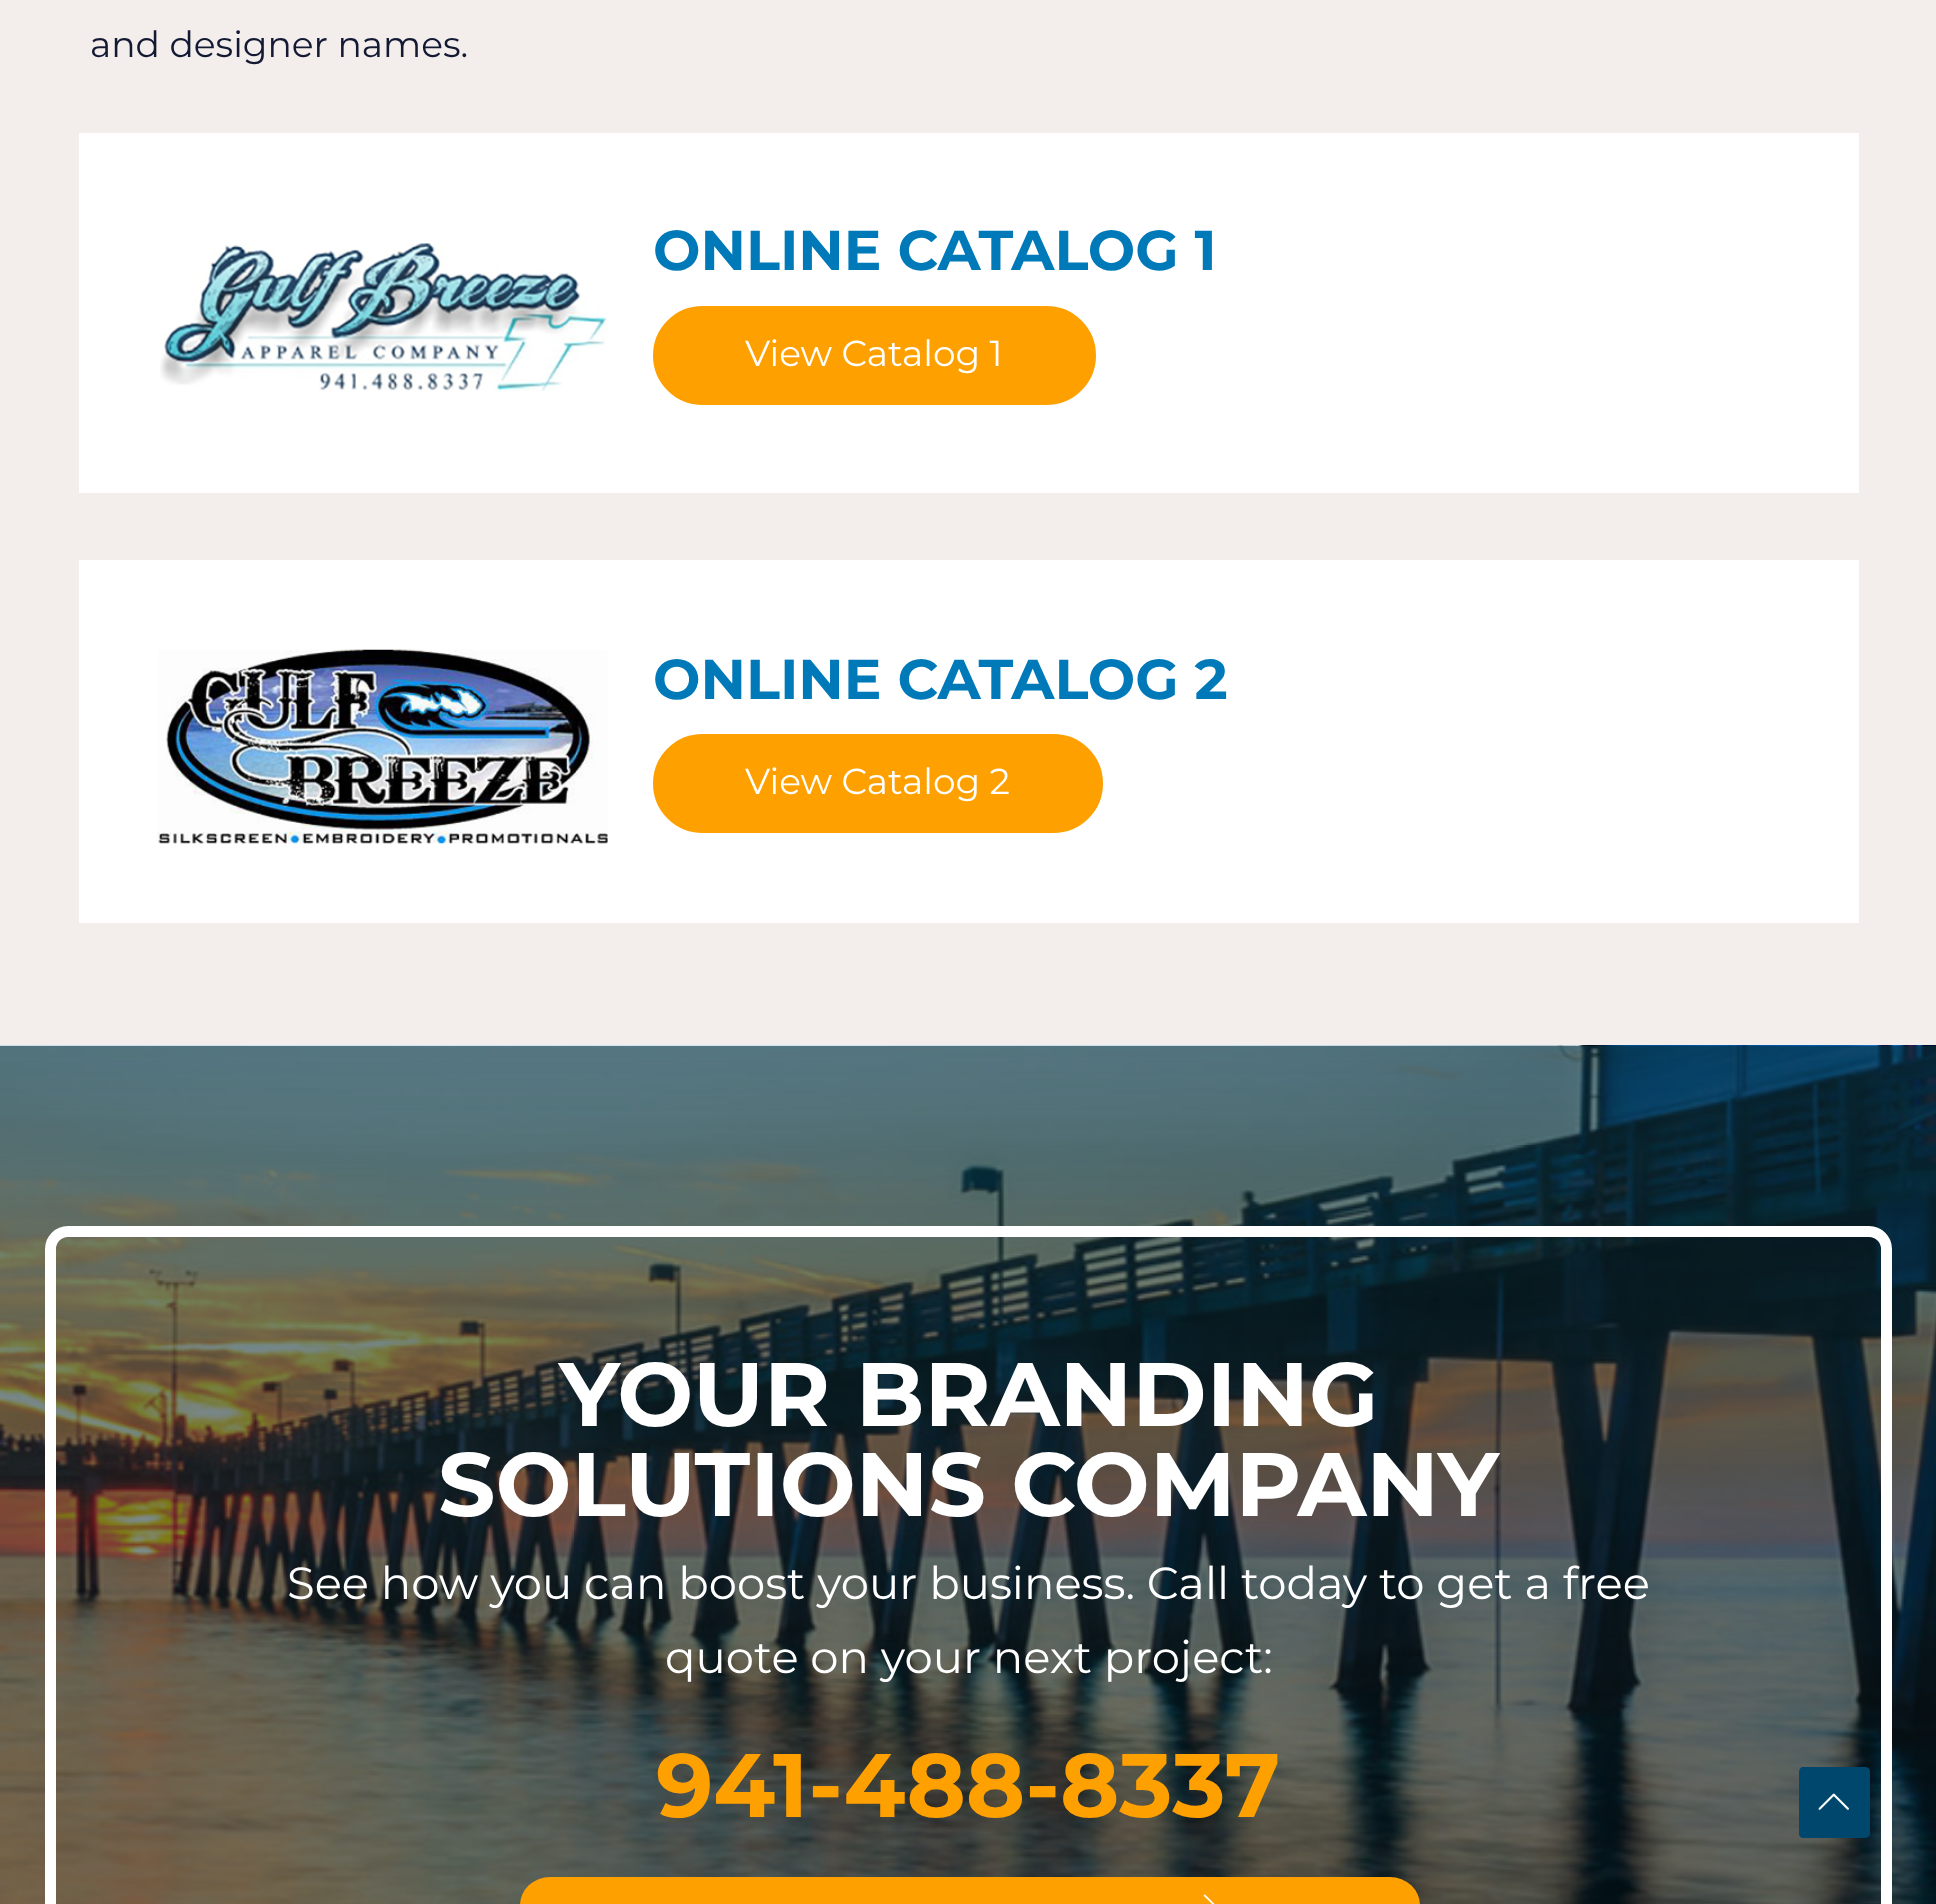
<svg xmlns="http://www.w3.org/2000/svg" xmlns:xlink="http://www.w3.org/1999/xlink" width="1936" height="1904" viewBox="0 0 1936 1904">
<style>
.cls-1{font:36px Montserrat;fill:#141933}
.cls-2{font:bold 56.25px Montserrat;fill:#0079b9}
.cls-3{font:36px Montserrat;fill:#ffffff}
.cls-4{font:bold 90px Montserrat;fill:#ffffff}
.cls-5{font:45px Montserrat;fill:#ffffff}
.cls-6{font:bold 90px Montserrat;fill:#ffa001}
</style>
<rect width="100%" height="100%" fill="#f3eeec"/>
<rect fill="#ffffff" x="79" y="133" width="1780" height="360"/>
<image xlink:href="image0.png" x="160" y="243" width="448" height="148"/>
<rect fill="#ffa001" stroke="#ffa001" stroke-width="2" x="654" y="307" width="441" height="97" rx="48.5"/>
<rect fill="#ffffff" x="79" y="560" width="1780" height="363"/>
<image xlink:href="image1.png" x="157" y="649" width="451" height="195"/>
<rect fill="#ffa001" stroke="#ffa001" stroke-width="2" x="654" y="735" width="448" height="97" rx="48.5"/>
<image xlink:href="image2.png" x="0" y="1045" width="1936" height="859"/>
<rect fill="none" stroke="#ffffff" stroke-width="11" x="50.5" y="1231.5" width="1836" height="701" rx="17.5"/>
<rect fill="#ffa001" x="520" y="1877" width="900" height="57" rx="30"/>
<image xlink:href="image3.png" x="1203" y="1894" width="12" height="10"/>
<path fill="#00476d" d="M1865 1838H1803C1801 1838 1799 1836 1799 1834V1772C1799 1769 1801 1767 1803 1767H1865C1868 1767 1870 1769 1870 1772V1834C1870 1836 1868 1838 1865 1838Z"/>
<image xlink:href="image4.png" x="1818" y="1793" width="31" height="17"/>
<text class="cls-1" x="90" y="57">and designer names.</text>
<text class="cls-2" x="653" y="270">ONLINE CATALOG 1</text>
<text class="cls-3" x="745" y="366">View Catalog 1</text>
<text class="cls-2" x="653" y="699">ONLINE CATALOG 2</text>
<text class="cls-3" x="745" y="794">View Catalog 2</text>
<text class="cls-4" x="559" y="1426">YOUR BRANDING</text>
<text class="cls-4" x="438" y="1516">SOLUTIONS COMPANY</text>
<text class="cls-5" x="287" y="1599">See how you can boost your business. Call today to get a free</text>
<text class="cls-5" x="665" y="1673">quote on your next project:</text>
<text class="cls-6" x="656" y="1817">941-488-8337</text>
</svg>
